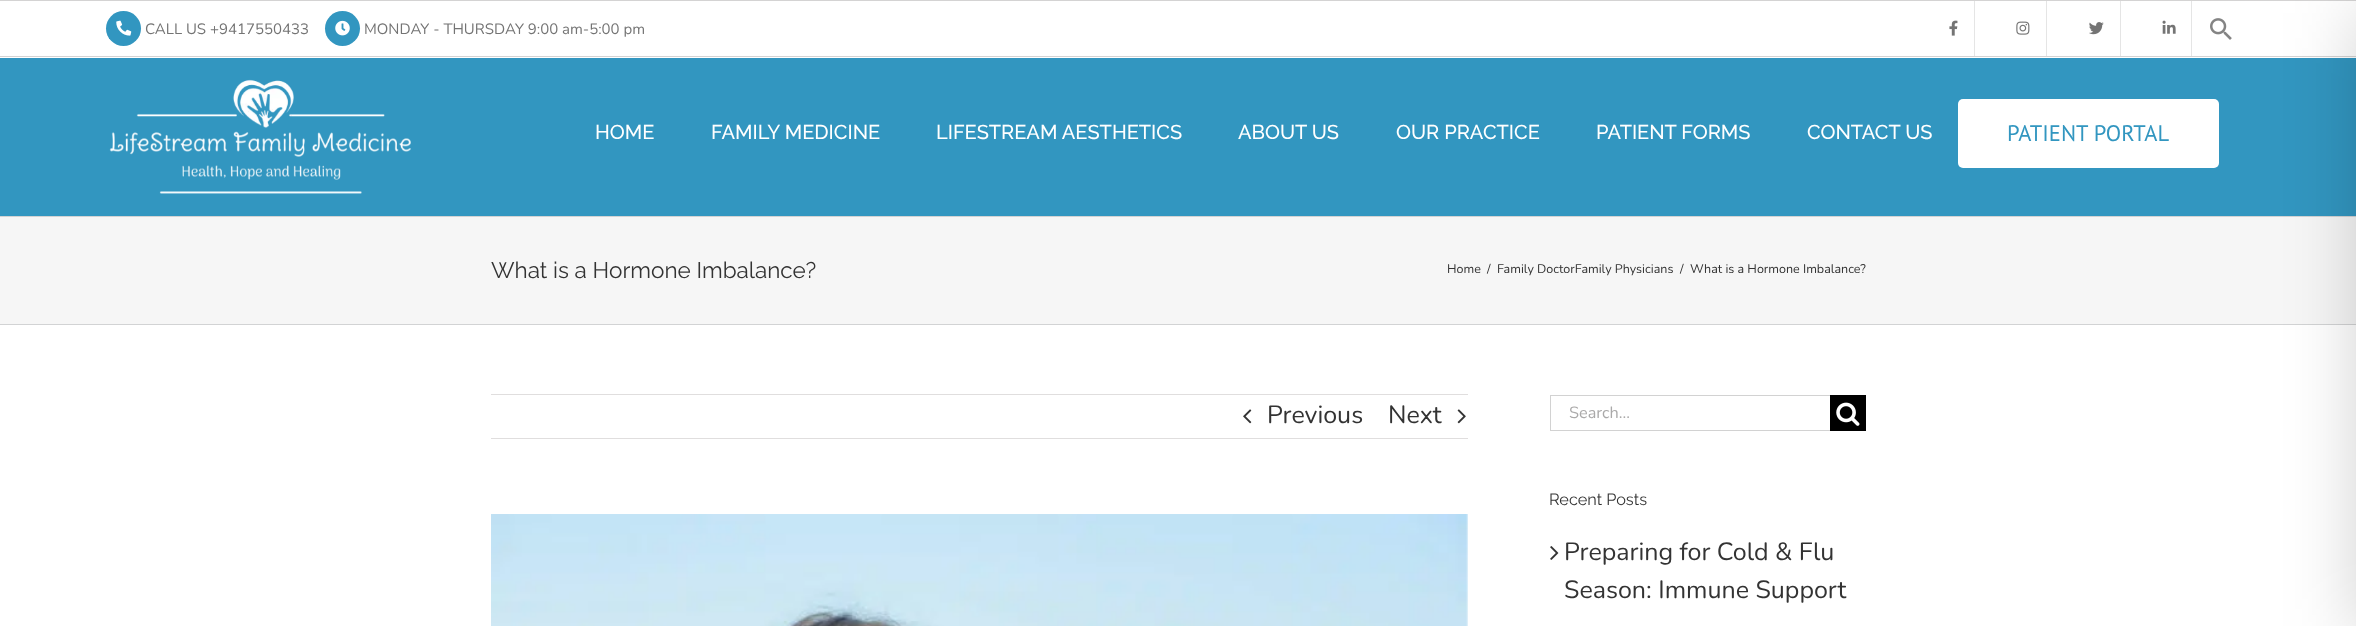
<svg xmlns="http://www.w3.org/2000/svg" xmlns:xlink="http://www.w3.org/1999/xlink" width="2356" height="626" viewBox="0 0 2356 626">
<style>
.cls-1{font:15px Nunito;fill:#747474}
.cls-2{font:500 20px Raleway;fill:#ffffff}
.cls-3{font:22.5px PT Sans;fill:#3296c0}
.cls-4{font:22.5px Raleway;fill:#333333}
.cls-5{font:12.5px Nunito;fill:#333333}
.cls-6{font:25px Nunito;fill:#333333}
.cls-7{font:16.25px Nunito;fill:#aaa9a9}
.cls-8{font:16.25px Raleway;fill:#333333}
</style>
<rect width="100%" height="100%" fill="#ffffff"/>
<rect fill="#d4d3d3" x="0" y="0" width="2356" height="1"/>
<rect fill="#d4d3d3" x="0" y="56" width="2356" height="1"/>
<circle fill="#3296c0" cx="123.5" cy="28.5" r="17.5"/>
<image xlink:href="image0.png" x="116" y="20" width="16" height="16"/>
<circle fill="#3296c0" cx="342.5" cy="28.5" r="17.5"/>
<image xlink:href="image1.png" x="335" y="20" width="15" height="16"/>
<image xlink:href="image2.png" x="1949" y="20" width="9" height="16"/>
<rect fill="#e5e5e5" x="1974" y="1" width="1" height="55"/>
<image xlink:href="image3.png" x="2016" y="21" width="14" height="14"/>
<rect fill="#e5e5e5" x="2046" y="1" width="1" height="55"/>
<image xlink:href="image4.png" x="2089" y="22" width="15" height="13"/>
<rect fill="#e5e5e5" x="2120" y="1" width="1" height="55"/>
<image xlink:href="image5.png" x="2162" y="20" width="14" height="14"/>
<rect fill="#e5e5e5" x="2191" y="1" width="1" height="55"/>
<image xlink:href="image6.png" x="2210" y="18" width="22" height="22"/>
<rect fill="#3296c0" x="0" y="58" width="2356" height="158"/>
<image xlink:href="image7.png" x="109" y="79" width="302" height="115"/>
<rect fill="#ffffff" x="1958" y="99" width="261" height="69" rx="5"/>
<rect fill="#f6f6f6" x="0" y="217" width="2356" height="107"/>
<rect fill="#d2d3d4" x="0" y="216" width="2356" height="1"/>
<rect fill="#d2d3d4" x="0" y="324" width="2356" height="1"/>
<rect fill="#e0dede" x="491" y="394" width="977" height="1"/>
<rect fill="#e0dede" x="491" y="438" width="977" height="1"/>
<image xlink:href="image8.png" x="1243" y="409" width="9" height="15"/>
<image xlink:href="image9.png" x="1457" y="409" width="9" height="15"/>
<image xlink:href="image10.png" x="491" y="514" width="977" height="112"/>
<rect fill="#d2d2d2" x="1550" y="395" width="280" height="1"/>
<rect fill="#d2d2d2" x="1550" y="430" width="280" height="1"/>
<rect fill="#d2d2d2" x="1550" y="395" width="1" height="36"/>
<rect fill="#000000" x="1830" y="395" width="36" height="36"/>
<image xlink:href="image11.png" x="1836" y="402" width="24" height="24"/>
<image xlink:href="image12.png" x="1550" y="546" width="9" height="14"/>
<rect fill="#000000" fill-opacity="0.2" filter="blur(37.5px)" x="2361" y="13" width="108" height="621"/>
<text class="cls-1" x="145" y="34">CALL US +9417550433</text>
<text class="cls-1" x="364" y="34">MONDAY - THURSDAY 9:00 am-5:00 pm</text>
<text class="cls-2" x="595" y="139">HOME</text>
<text class="cls-2" x="711" y="139">FAMILY MEDICINE</text>
<text class="cls-2" x="936" y="139">LIFESTREAM AESTHETICS</text>
<text class="cls-2" x="1238" y="139">ABOUT US</text>
<text class="cls-2" x="1396" y="139">OUR PRACTICE</text>
<text class="cls-2" x="1596" y="139">PATIENT FORMS</text>
<text class="cls-2" x="1807" y="139">CONTACT US</text>
<text class="cls-3" x="2007" y="141">PATIENT PORTAL</text>
<text class="cls-4" x="491" y="278">What is a Hormone Imbalance?</text>
<text class="cls-5" x="1447" y="273">Home</text>
<text class="cls-5" x="1487" y="273">/</text>
<text class="cls-5" x="1497" y="273">Family DoctorFamily Physicians</text>
<text class="cls-5" x="1680" y="273">/</text>
<text class="cls-5" x="1690" y="273">What is a Hormone Imbalance?</text>
<text class="cls-6" x="1267" y="423">Previous</text>
<text class="cls-6" x="1388" y="423">Next</text>
<text class="cls-7" x="1569" y="418">Search...</text>
<text class="cls-8" x="1549" y="505">Recent Posts</text>
<text class="cls-6"><tspan x="1564" y="560">Preparing for Cold &amp; Flu</tspan><tspan x="1564" y="598">Season: Immune Support</tspan></text>
</svg>
